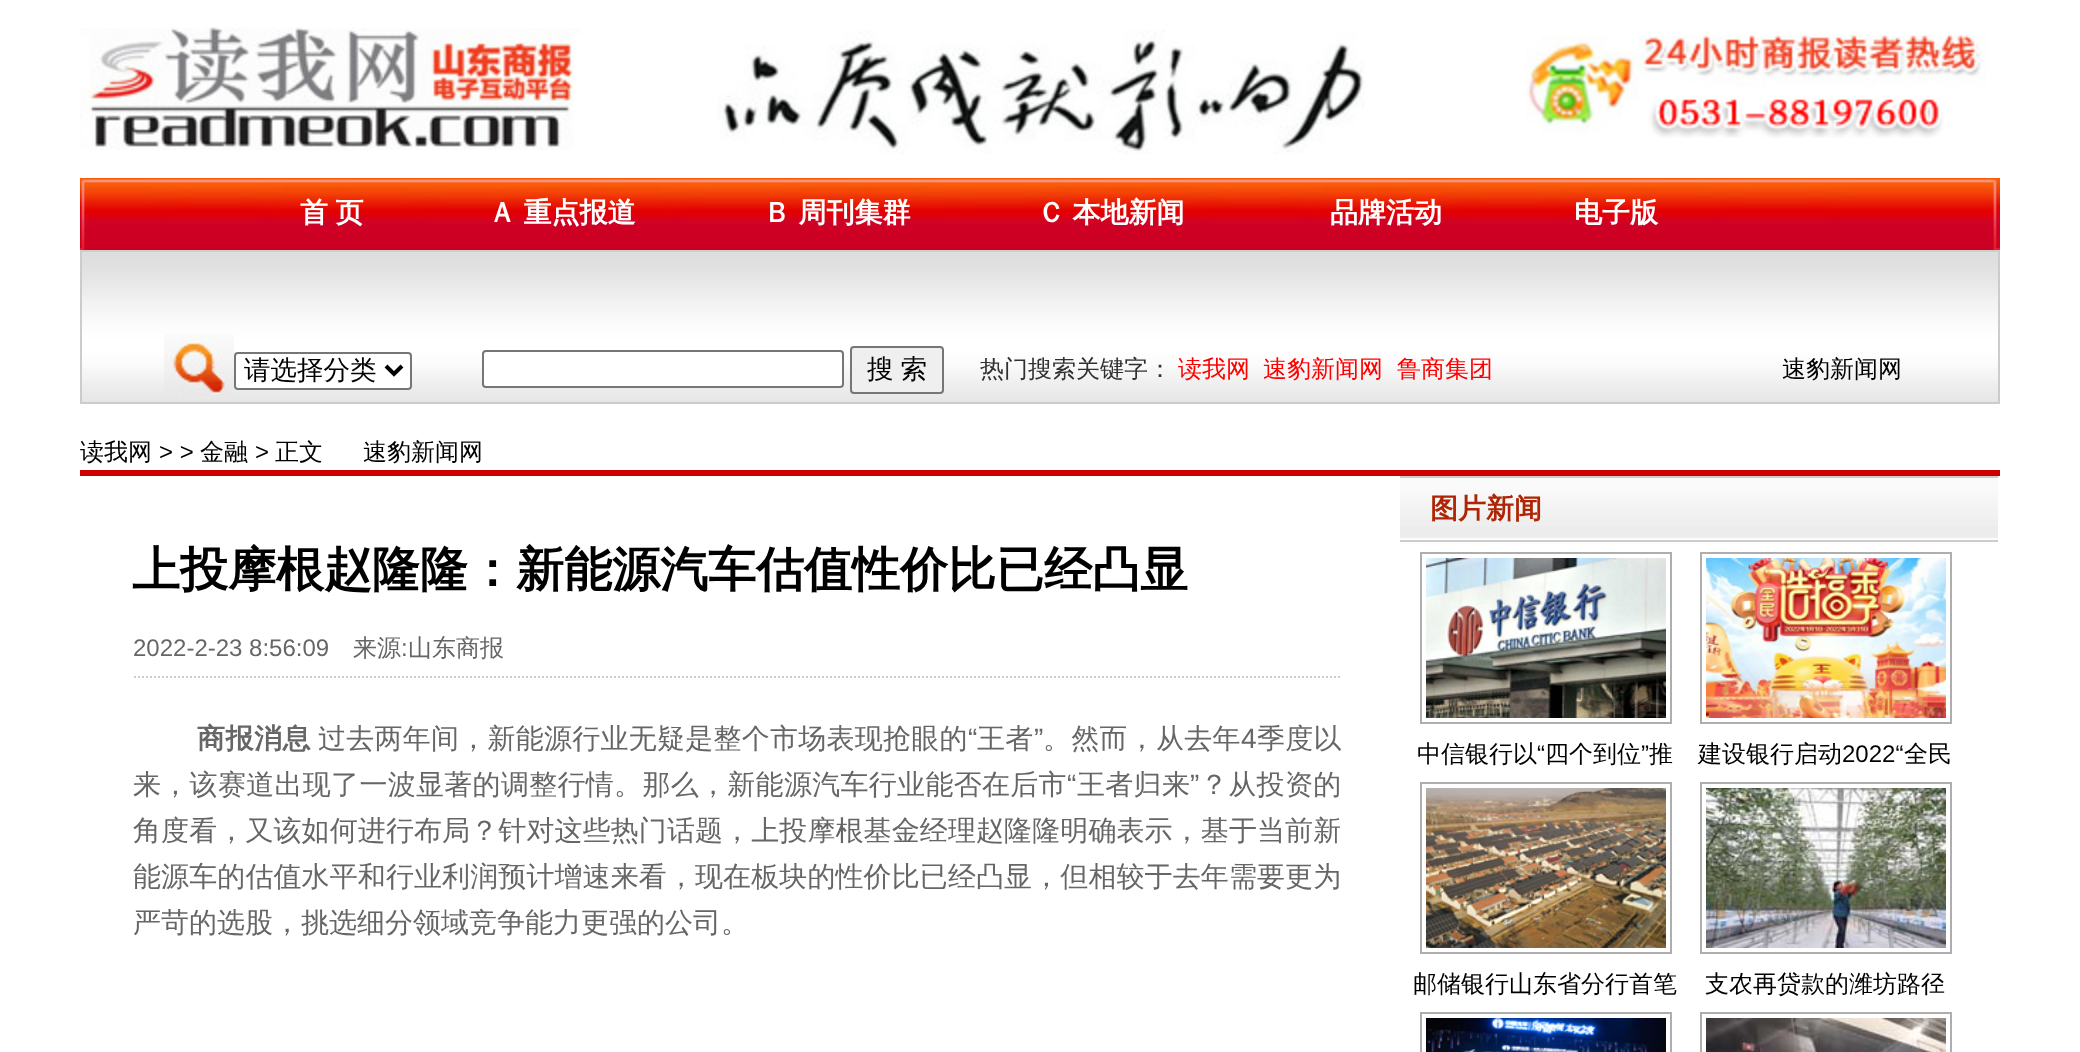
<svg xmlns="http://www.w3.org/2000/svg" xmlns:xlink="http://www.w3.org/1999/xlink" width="2080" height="1052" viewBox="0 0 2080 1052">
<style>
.cls-1{font:bold 28px WenQuanYi Zen Hei;fill:#ffffff}
.cls-2{font:500 26.5px WenQuanYi Zen Hei;fill:#000000}
.cls-3{font:500 24px WenQuanYi Zen Hei;fill:#303030}
.cls-4{font:500 24px WenQuanYi Zen Hei;fill:#ff0000}
.cls-5{font:500 24px WenQuanYi Zen Hei;fill:#000000}
.cls-6{font:24px Liberation Sans;fill:#000000}
.cls-7{font:bold 48px WenQuanYi Zen Hei;fill:#000000}
.cls-8{font:24px Liberation Sans;fill:#666666}
.cls-9{font:500 24px WenQuanYi Zen Hei;fill:#666666}
.cls-10{font:bold 28px WenQuanYi Zen Hei;letter-spacing:0.5px;fill:#666666}
.cls-11{font:500 28px WenQuanYi Zen Hei;letter-spacing:0.25px;fill:#666666}
.cls-12{font:28px Liberation Sans;letter-spacing:0.25px;fill:#666666}
.cls-13{font:500 28px WenQuanYi Zen Hei;letter-spacing:0.3px;fill:#666666}
.cls-14{font:28px Liberation Sans;letter-spacing:0.3px;fill:#666666}
.cls-15{font:500 28px WenQuanYi Zen Hei;letter-spacing:0.1px;fill:#666666}
.cls-16{font:500 28px WenQuanYi Zen Hei;fill:#666666}
.cls-17{font:bold 28px WenQuanYi Zen Hei;fill:#ae2505}
</style>
<rect width="100%" height="100%" fill="#ffffff"/>
<image xlink:href="image0.png" x="80" y="27" width="502" height="123"/>
<image xlink:href="image1.png" x="718" y="30" width="647" height="124"/>
<image xlink:href="image2.png" x="1526" y="35" width="462" height="103"/>
<image xlink:href="image3.png" x="80" y="178" width="1920" height="72"/>
<image xlink:href="image4.png" x="80" y="247" width="2" height="1"/>
<image xlink:href="image5.png" x="1996" y="247" width="4" height="1"/>
<image xlink:href="image6.png" x="82" y="252" width="1916" height="150"/>
<rect fill="none" stroke="#cccccc" stroke-width="2" x="81" y="251" width="1918" height="152"/>
<image xlink:href="image7.png" x="164" y="334" width="70" height="62"/>
<rect fill="#ffffff" stroke="#767676" stroke-width="2" x="235" y="353" width="176" height="36" rx="3"/>
<path fill="none" stroke="#000000" stroke-width="4" d="M386 366L394 374L402 366"/>
<rect fill="#ffffff" stroke="#767676" stroke-width="2" x="483" y="351" width="360" height="36" rx="3"/>
<rect fill="#efefef" stroke="#767676" stroke-width="2" x="851" y="347" width="92" height="46" rx="3"/>
<rect fill="#cc0000" x="80" y="470" width="1920" height="6"/>
<path fill="none" stroke="#cccccc" stroke-width="2" stroke-dasharray="2 2" d="M134 677H1342"/>
<image xlink:href="image8.png" x="1400" y="478" width="598" height="61"/>
<rect fill="#cccccc" x="1400" y="476" width="598" height="2"/>
<rect fill="#cccccc" x="1400" y="540" width="598" height="2"/>
<rect fill="none" stroke="#aeaeae" stroke-width="2" x="1421" y="553" width="250" height="170"/>
<image xlink:href="image9.png" x="1426" y="558" width="240" height="160"/>
<rect fill="none" stroke="#aeaeae" stroke-width="2" x="1701" y="553" width="250" height="170"/>
<image xlink:href="image10.png" x="1706" y="558" width="240" height="160"/>
<rect fill="none" stroke="#aeaeae" stroke-width="2" x="1421" y="783" width="250" height="170"/>
<image xlink:href="image11.png" x="1426" y="788" width="240" height="160"/>
<rect fill="none" stroke="#aeaeae" stroke-width="2" x="1701" y="783" width="250" height="170"/>
<image xlink:href="image12.png" x="1706" y="788" width="240" height="160"/>
<rect fill="none" stroke="#aeaeae" stroke-width="2" x="1421" y="1013" width="250" height="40"/>
<image xlink:href="image13.png" x="1426" y="1018" width="240" height="34"/>
<rect fill="none" stroke="#aeaeae" stroke-width="2" x="1701" y="1013" width="250" height="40"/>
<image xlink:href="image14.png" x="1706" y="1018" width="240" height="34"/>
<text class="cls-1" x="300" y="222" word-spacing="-1">首 页</text>
<text class="cls-1" x="488" y="222" word-spacing="-1">Ａ 重点报道</text>
<text class="cls-1" x="763" y="222" word-spacing="-1">Ｂ 周刊集群</text>
<text class="cls-1" x="1037" y="222" word-spacing="-1">Ｃ 本地新闻</text>
<text class="cls-1" x="1330" y="222">品牌活动</text>
<text class="cls-1" x="1574" y="222">电子版</text>
<text class="cls-2" x="244" y="379">请选择分类</text>
<text class="cls-2" x="867" y="378" word-spacing="-1">搜 索</text>
<text class="cls-3" x="980" y="377">热门搜索关键字：</text>
<text class="cls-4" x="1178" y="377">读我网</text>
<text class="cls-4" x="1263" y="377">速豹新闻网</text>
<text class="cls-4" x="1397" y="377">鲁商集团</text>
<text class="cls-5" x="1782" y="377">速豹新闻网</text>
<text class="cls-5" x="80" y="460">读我网</text>
<text class="cls-6" x="159" y="460">&gt; &gt;</text>
<text class="cls-5" x="200" y="460">金融</text>
<text class="cls-6" x="255" y="460">&gt;</text>
<text class="cls-5" x="275" y="460">正文</text>
<text class="cls-5" x="363" y="460">速豹新闻网</text>
<text class="cls-7" x="132" y="586">上投摩根赵隆隆：新能源汽车估值性价比已经凸显</text>
<text class="cls-8" x="133" y="656">2022-2-23 8:56:09</text>
<text class="cls-9" x="353" y="656">来源</text>
<text class="cls-8" x="401" y="656">:</text>
<text class="cls-9" x="408" y="656">山东商报</text>
<text class="cls-10" x="197" y="748">商报消息</text>
<text class="cls-11" x="318" y="748">过去两年间，新能源行业无疑是整个市场表现抢眼的</text>
<text class="cls-12" x="968" y="748">“</text>
<text class="cls-11" x="977" y="748">王者</text>
<text class="cls-12" x="1034" y="748">”</text>
<text class="cls-11" x="1043" y="748">。然而，从去年</text>
<text class="cls-12" x="1241" y="748">4</text>
<text class="cls-11" x="1257" y="748">季度以</text>
<text class="cls-13" x="133" y="794">来，该赛道出现了一波显著的调整行情。那么，新能源汽车行业能否在后市</text>
<text class="cls-14" x="1067" y="794">“</text>
<text class="cls-13" x="1077" y="794">王者归来</text>
<text class="cls-14" x="1190" y="794">”</text>
<text class="cls-13" x="1200" y="794">？从投资的</text>
<text class="cls-15"><tspan x="133" y="840">角度看，又该如何进行布局？针对这些热门话题，上投摩根基金经理赵隆隆明确表示，基于当前新</tspan><tspan x="133" y="886">能源车的估值水平和行业利润预计增速来看，现在板块的性价比已经凸显，但相较于去年需要更为</tspan></text>
<text class="cls-16" x="133" y="932">严苛的选股，挑选细分领域竞争能力更强的公司。</text>
<text class="cls-17" x="1430" y="518">图片新闻</text>
<text class="cls-5" x="1417" y="762">中信银行以</text>
<text class="cls-6" x="1537" y="762">“</text>
<text class="cls-5" x="1545" y="762">四个到位</text>
<text class="cls-6" x="1641" y="762">”</text>
<text class="cls-5" x="1649" y="762">推</text>
<text class="cls-5" x="1698" y="762">建设银行启动</text>
<text class="cls-6" x="1842" y="762">2022“</text>
<text class="cls-5" x="1904" y="762">全民</text>
<text class="cls-5" x="1413" y="992">邮储银行山东省分行首笔</text>
<text class="cls-5" x="1705" y="992">支农再贷款的潍坊路径</text>
</svg>
